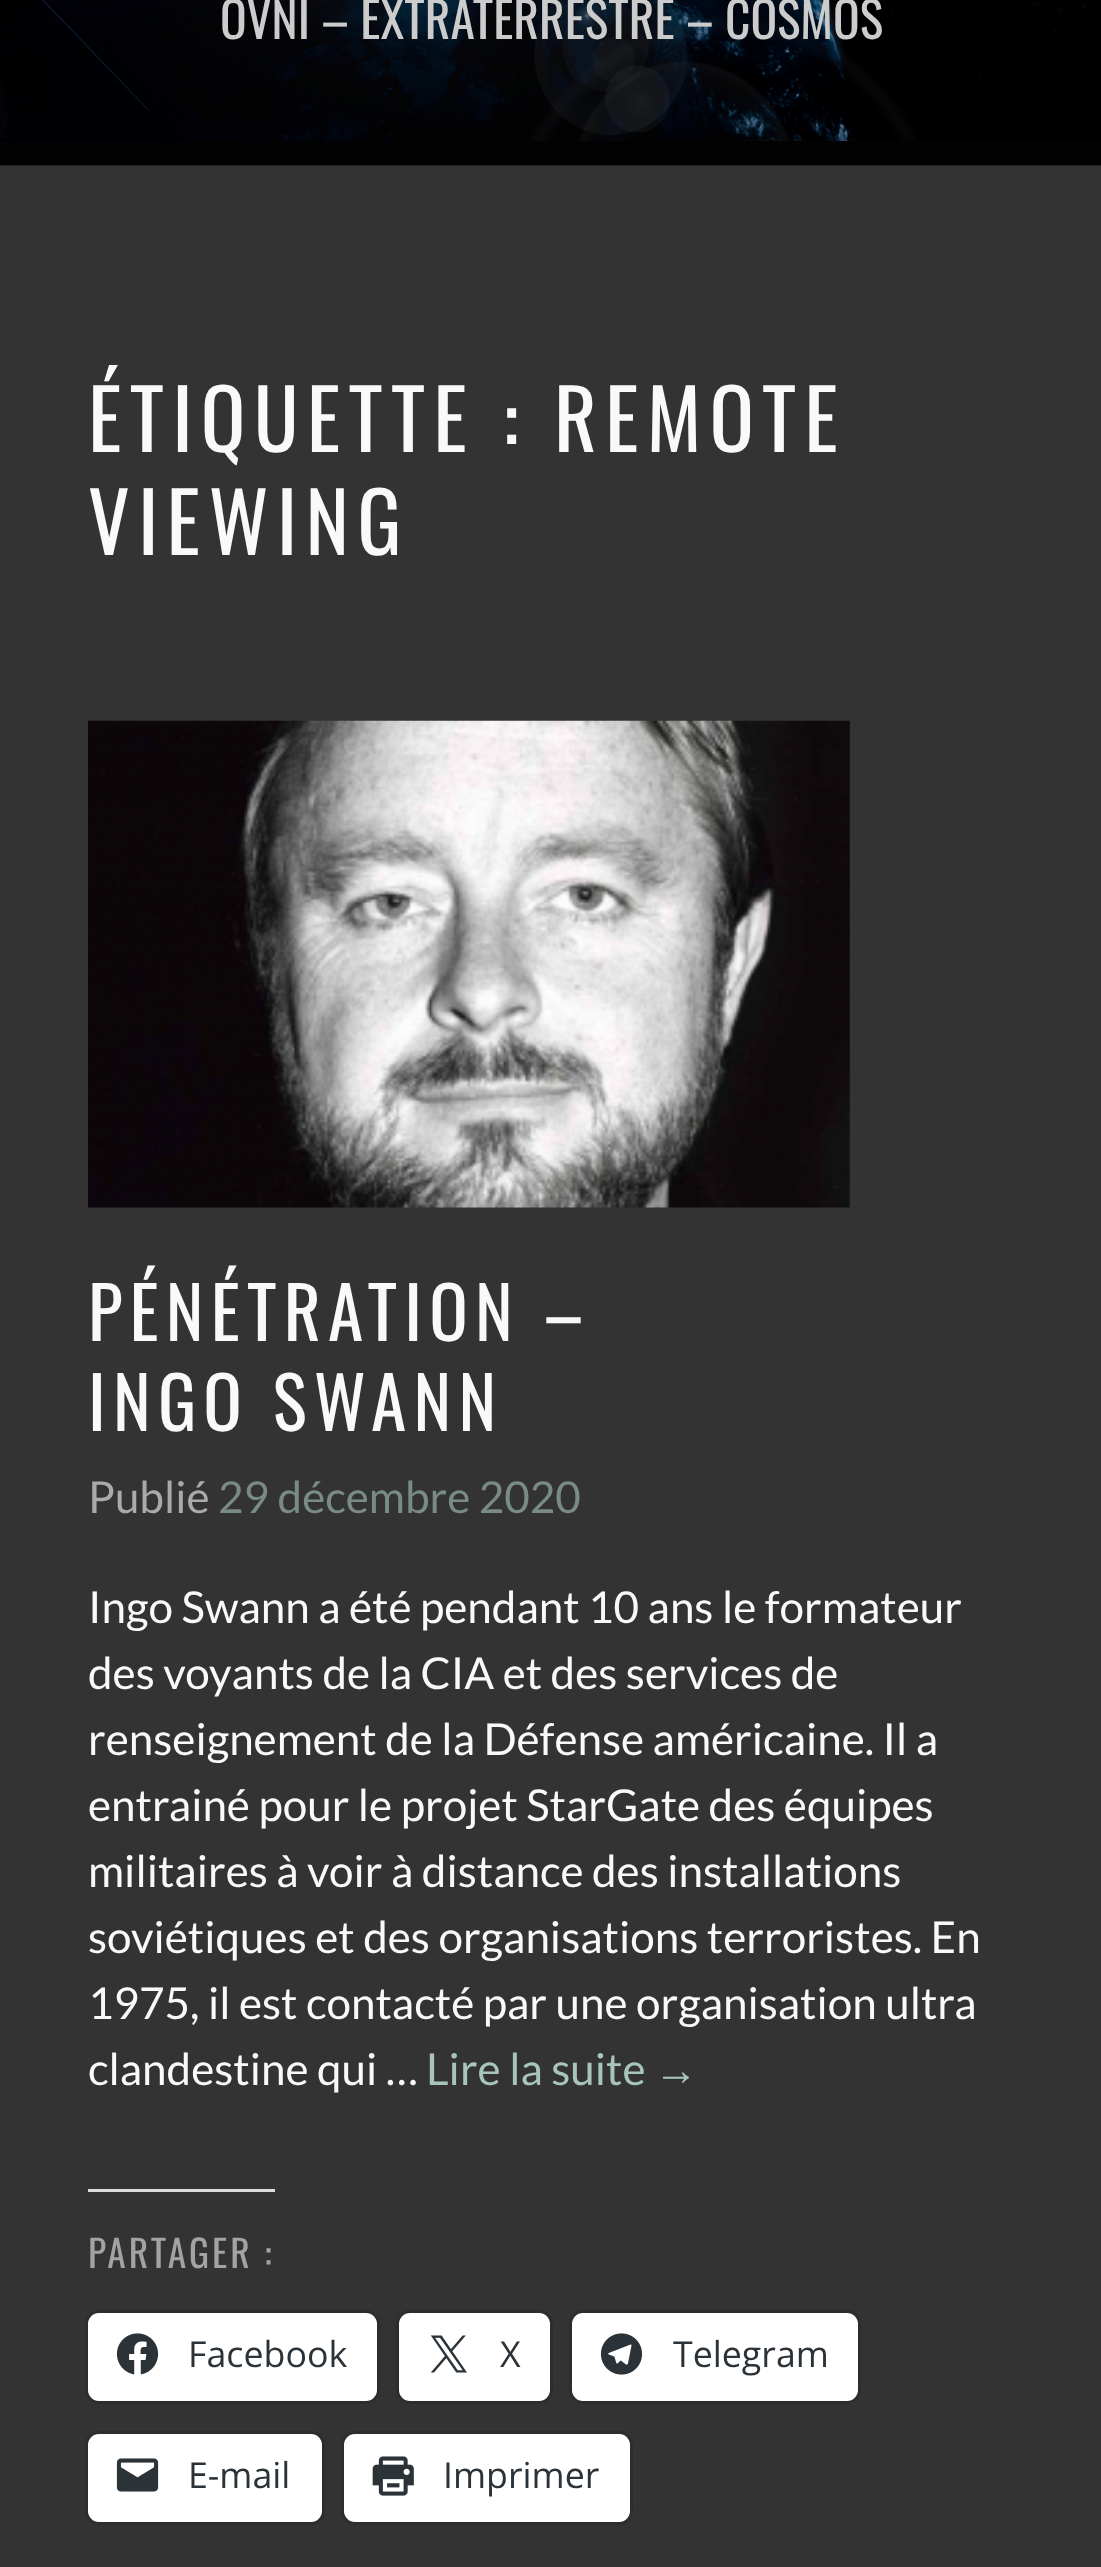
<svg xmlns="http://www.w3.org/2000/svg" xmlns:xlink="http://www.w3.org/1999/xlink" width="1101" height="2567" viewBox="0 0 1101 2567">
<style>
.cls-1{font:49.5px Oswald;fill:#cccccc}
.cls-2{font:82.5px Oswald;letter-spacing:8.25px;fill:#f9f9f9}
.cls-3{font:71.5px Oswald;letter-spacing:7.2px;fill:#f9f9f9}
.cls-4{font:44px Lato;fill:#aaaaaa}
.cls-5{font:44px Lato;fill:#798b86}
.cls-6{font:44px Lato;fill:#f9f9f9}
.cls-7{font:44px Lato;fill:#a7c5bd}
.cls-8{font:44px Liberation Sans;fill:#a7c5bd}
.cls-9{font:37.5px Oswald;letter-spacing:3px;fill:#a3a3a3}
.cls-10{font:35.75px Open Sans;fill:#2c3338}
</style>
<rect width="100%" height="100%" fill="#333333"/>
<image xlink:href="image0.png" x="0" y="0" width="1101" height="166"/>
<image xlink:href="image1.png" x="88" y="720" width="762" height="488"/>
<rect fill="#dcdcde" x="88" y="2189" width="187" height="3"/>
<rect fill="none" stroke="#2d2d2d" stroke-width="3" x="86.5" y="2311.5" width="292" height="91" rx="12.5"/>
<rect fill="#ffffff" x="88" y="2313" width="289" height="88" rx="11"/>
<image xlink:href="image2.png" x="116" y="2333" width="43" height="42"/>
<rect fill="none" stroke="#2d2d2d" stroke-width="3" x="397.5" y="2311.5" width="154" height="91" rx="12.5"/>
<rect fill="#ffffff" x="399" y="2313" width="151" height="88" rx="11"/>
<image xlink:href="image3.png" x="430" y="2335" width="37" height="38"/>
<rect fill="none" stroke="#2d2d2d" stroke-width="3" x="570.5" y="2311.5" width="289" height="91" rx="12.5"/>
<rect fill="#ffffff" x="572" y="2313" width="286" height="88" rx="11"/>
<image xlink:href="image4.png" x="600" y="2333" width="43" height="42"/>
<rect fill="none" stroke="#2d2d2d" stroke-width="3" x="86.5" y="2432.5" width="237" height="91" rx="12.5"/>
<rect fill="#ffffff" x="88" y="2434" width="234" height="88" rx="11"/>
<image xlink:href="image5.png" x="116" y="2458" width="43" height="34"/>
<rect fill="none" stroke="#2d2d2d" stroke-width="3" x="342.5" y="2432.5" width="289" height="91" rx="12.5"/>
<rect fill="#ffffff" x="344" y="2434" width="286" height="88" rx="11"/>
<image xlink:href="image6.png" x="372" y="2456" width="42" height="40"/>
<text class="cls-1" x="220" y="39">OVNI – EXTRATERRESTRE – COSMOS</text>
<text class="cls-2"><tspan x="88" y="452">ÉTIQUETTE : REMOTE</tspan><tspan x="88" y="555">VIEWING</tspan></text>
<text class="cls-3"><tspan x="88" y="1341">PÉNÉTRATION –</tspan><tspan x="88" y="1431">INGO SWANN</tspan></text>
<text class="cls-4" x="88" y="1513">Publié</text>
<text class="cls-5" x="218" y="1513">29 décembre 2020</text>
<text class="cls-6"><tspan x="88" y="1623">Ingo Swann a été pendant 10 ans le formateur</tspan><tspan x="88" y="1689">des voyants de la CIA et des services de</tspan><tspan x="88" y="1755">renseignement de la Défense américaine. Il a</tspan><tspan x="88" y="1821">entrainé pour le projet StarGate des équipes</tspan><tspan x="88" y="1887">militaires à voir à distance des installations</tspan><tspan x="88" y="1953">soviétiques et des organisations terroristes. En</tspan><tspan x="88" y="2019">1975, il est contacté par une organisation ultra</tspan><tspan x="88" y="2085">clandestine qui …</tspan></text>
<text class="cls-7" x="426" y="2085">Lire la suite</text>
<text class="cls-8" x="654" y="2085">→</text>
<text class="cls-9" x="88" y="2268">PARTAGER :</text>
<text class="cls-10" x="188" y="2367">Facebook</text>
<text class="cls-10" x="500" y="2367">X</text>
<text class="cls-10" x="673" y="2367">Telegram</text>
<text class="cls-10" x="188" y="2488">E-mail</text>
<text class="cls-10" x="443" y="2488">Imprimer</text>
</svg>
